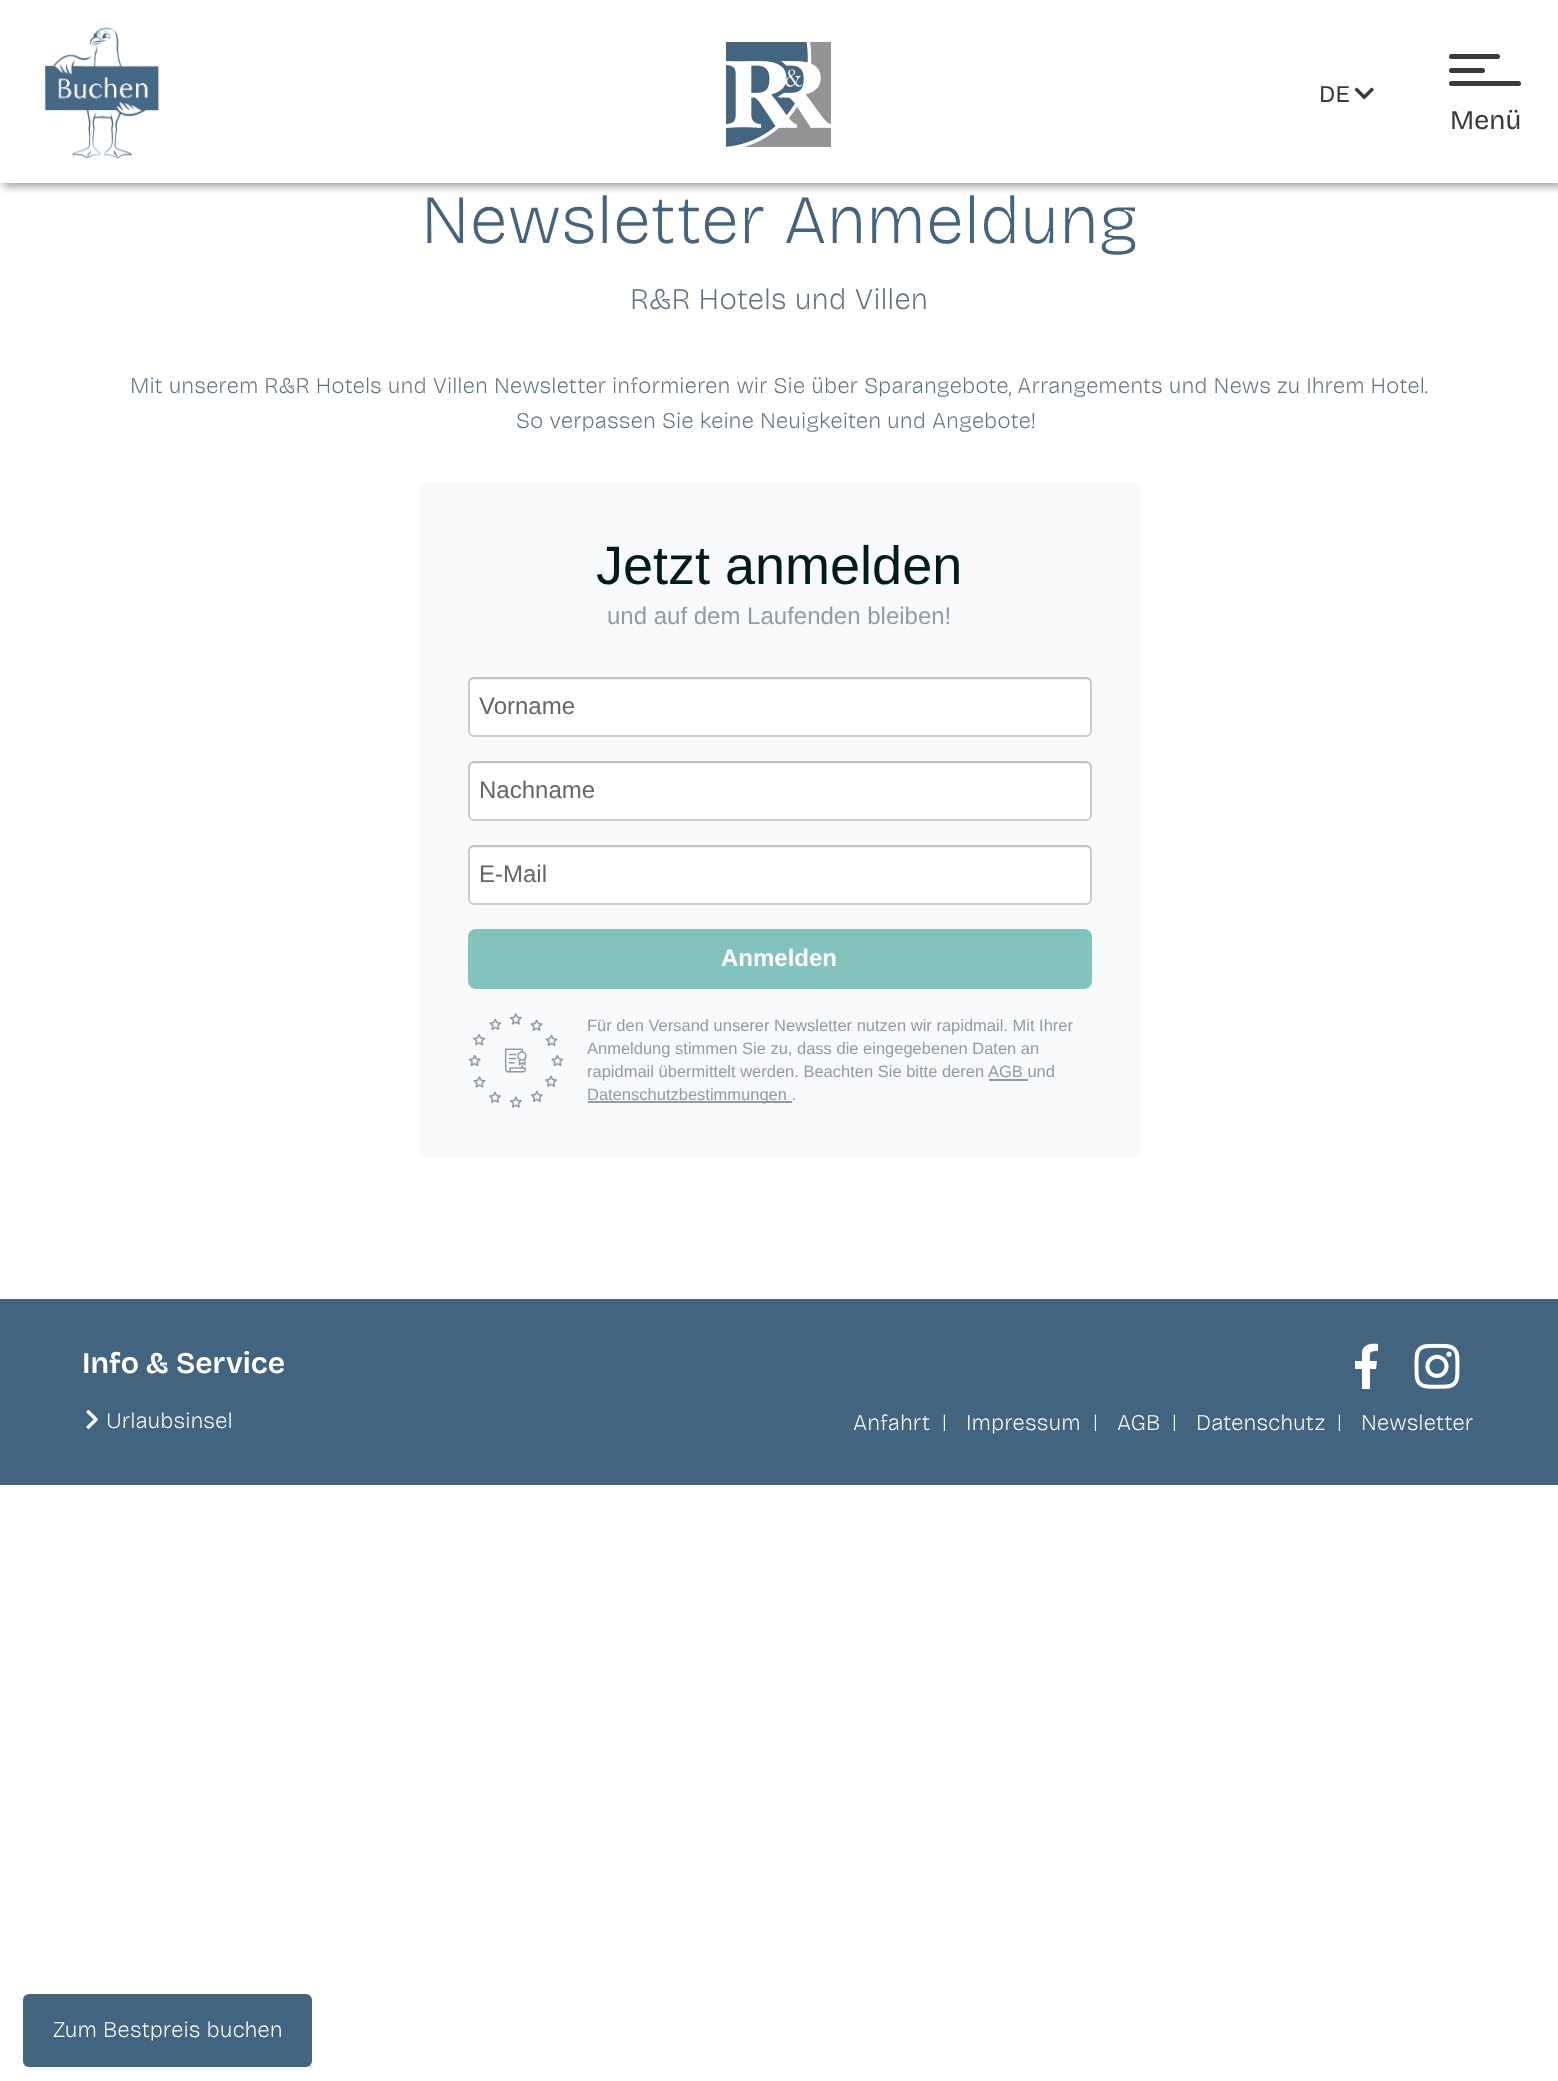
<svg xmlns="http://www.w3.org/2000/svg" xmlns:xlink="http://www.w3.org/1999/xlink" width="1558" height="2081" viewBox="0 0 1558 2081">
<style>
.cls-1{font:800 24px Bricolage Grotesque;fill:#3a3a3a}
.cls-2{font:800 27px Bricolage Grotesque;fill:#3a3a3a}
.cls-3{font:200 69px Bricolage Grotesque;fill:#43647f}
.cls-4{font:200 30px Bricolage Grotesque;fill:#61717d}
.cls-5{font:200 22.5px Bricolage Grotesque;fill:#61717d}
.cls-6{font:54px Liberation Sans;fill:#021c1e}
.cls-7{font:24px Liberation Sans;fill:#969a9e}
.cls-8{font:24px Liberation Sans;fill:#666666}
.cls-9{font:bold 24px Liberation Sans;fill:#ffffff}
.cls-10{font:16.5px Liberation Sans;fill:#969a9e}
.cls-11{font:600 30px Bricolage Grotesque;fill:#ffffff}
.cls-12{font:200 22.5px Bricolage Grotesque;fill:#ffffff}
.cls-13{font:200 20px Bricolage Grotesque;fill:#ffffff}
</style>
<defs>
<clipPath id="clip1"><rect x="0" y="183" width="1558" height="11"/></clipPath>
</defs>
<rect width="100%" height="100%" fill="#ffffff"/>
<g clip-path="url(#clip1)">
<rect fill="#97969b" filter="blur(4px)" x="3" y="3" width="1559" height="183"/>
</g>
<image xlink:href="image0.png" x="44" y="27" width="116" height="132"/>
<image xlink:href="image1.png" x="726" y="42" width="105" height="105"/>
<image xlink:href="image2.png" x="1354" y="87" width="20" height="13"/>
<rect fill="#3a3a3a" x="1449" y="54" width="51" height="5" rx="2.5"/>
<rect fill="#3a3a3a" x="1449" y="68" width="36" height="5" rx="2.5"/>
<rect fill="#3a3a3a" x="1449" y="81" width="72" height="5" rx="2.5"/>
<rect fill="#f7f9fa" x="420" y="483" width="720" height="674"/>
<rect fill="#ffffff" stroke="#cccccc" stroke-width="2" x="469" y="678" width="622" height="58" rx="5"/>
<path fill="#000000" fill-opacity="0.05" d="M474 680H1086C1089 680 1092 682 1092 686C1092 682 1091 677 1086 677H474C469 677 468 682 468 686C468 682 471 680 474 680Z"/>
<rect fill="#ffffff" stroke="#cccccc" stroke-width="2" x="469" y="762" width="622" height="58" rx="5"/>
<path fill="#000000" fill-opacity="0.05" d="M474 764H1086C1089 764 1092 766 1092 770C1092 766 1091 761 1086 761H474C469 761 468 766 468 770C468 766 471 764 474 764Z"/>
<rect fill="#ffffff" stroke="#cccccc" stroke-width="2" x="469" y="846" width="622" height="58" rx="5"/>
<path fill="#000000" fill-opacity="0.05" d="M474 848H1086C1089 848 1092 850 1092 854C1092 850 1091 845 1086 845H474C469 845 468 850 468 854C468 850 471 848 474 848Z"/>
<rect fill="#82c3bd" x="468" y="929" width="624" height="60" rx="8"/>
<image xlink:href="image3.png" x="468" y="1013" width="96" height="95"/>
<rect fill="#969a9e" x="989" y="1079" width="39" height="2"/>
<rect fill="#969a9e" x="588" y="1101" width="204" height="2"/>
<rect fill="#43647f" x="0" y="1299" width="1558" height="186"/>
<image xlink:href="image4.png" x="86" y="1409" width="12" height="20"/>
<path fill="#ffffff" d="M1362 1369H1355V1361H1362V1351C1364 1344 1372 1343 1378 1344V1351C1369 1351 1370 1352 1370 1361H1377L1376 1369H1370V1389H1362Z"/>
<image xlink:href="image5.png" x="1414" y="1343" width="46" height="46"/>
<rect fill="#43647f" x="23" y="1994" width="289" height="73" rx="6"/>
<text class="cls-1" x="1319" y="102">DE</text>
<text class="cls-2" x="1450" y="129">Menü</text>
<text class="cls-3" x="421" y="243">Newsletter Anmeldung</text>
<text class="cls-4" x="630" y="309">R&amp;R Hotels und Villen</text>
<text class="cls-5" x="130" y="393">Mit unserem R&amp;R Hotels und Villen Newsletter informieren wir Sie über Sparangebote, Arrangements und News zu Ihrem Hotel.</text>
<text class="cls-5" x="516" y="428">So verpassen Sie keine Neuigkeiten und Angebote!</text>
<text class="cls-6" x="596" y="584">Jetzt anmelden</text>
<text class="cls-7" x="607" y="624">und auf dem Laufenden bleiben!</text>
<text class="cls-8" x="479" y="714">Vorname</text>
<text class="cls-8" x="479" y="798">Nachname</text>
<text class="cls-8" x="479" y="882">E-Mail</text>
<text class="cls-9" x="721" y="966">Anmelden</text>
<text class="cls-10"><tspan x="587" y="1031">Für den Versand unserer Newsletter nutzen wir rapidmail. Mit Ihrer</tspan><tspan x="587" y="1054">Anmeldung stimmen Sie zu, dass die eingegebenen Daten an</tspan><tspan x="587" y="1077">rapidmail übermittelt werden. Beachten Sie bitte deren</tspan></text>
<text class="cls-10" x="988" y="1077">AGB und</text>
<text class="cls-10" x="587" y="1100">Datenschutzbestimmungen .</text>
<text class="cls-11" x="82" y="1373">Info &amp; Service</text>
<text class="cls-12" x="106" y="1428">Urlaubsinsel</text>
<text class="cls-12" x="853" y="1430">Anfahrt</text>
<text class="cls-13" x="942" y="1428">|</text>
<text class="cls-12" x="966" y="1430">Impressum</text>
<text class="cls-13" x="1093" y="1428">|</text>
<text class="cls-12" x="1117" y="1430">AGB</text>
<text class="cls-13" x="1172" y="1428">|</text>
<text class="cls-12" x="1196" y="1430">Datenschutz</text>
<text class="cls-13" x="1337" y="1428">|</text>
<text class="cls-12" x="1361" y="1430">Newsletter</text>
<text class="cls-12" x="53" y="2037">Zum Bestpreis buchen</text>
</svg>
